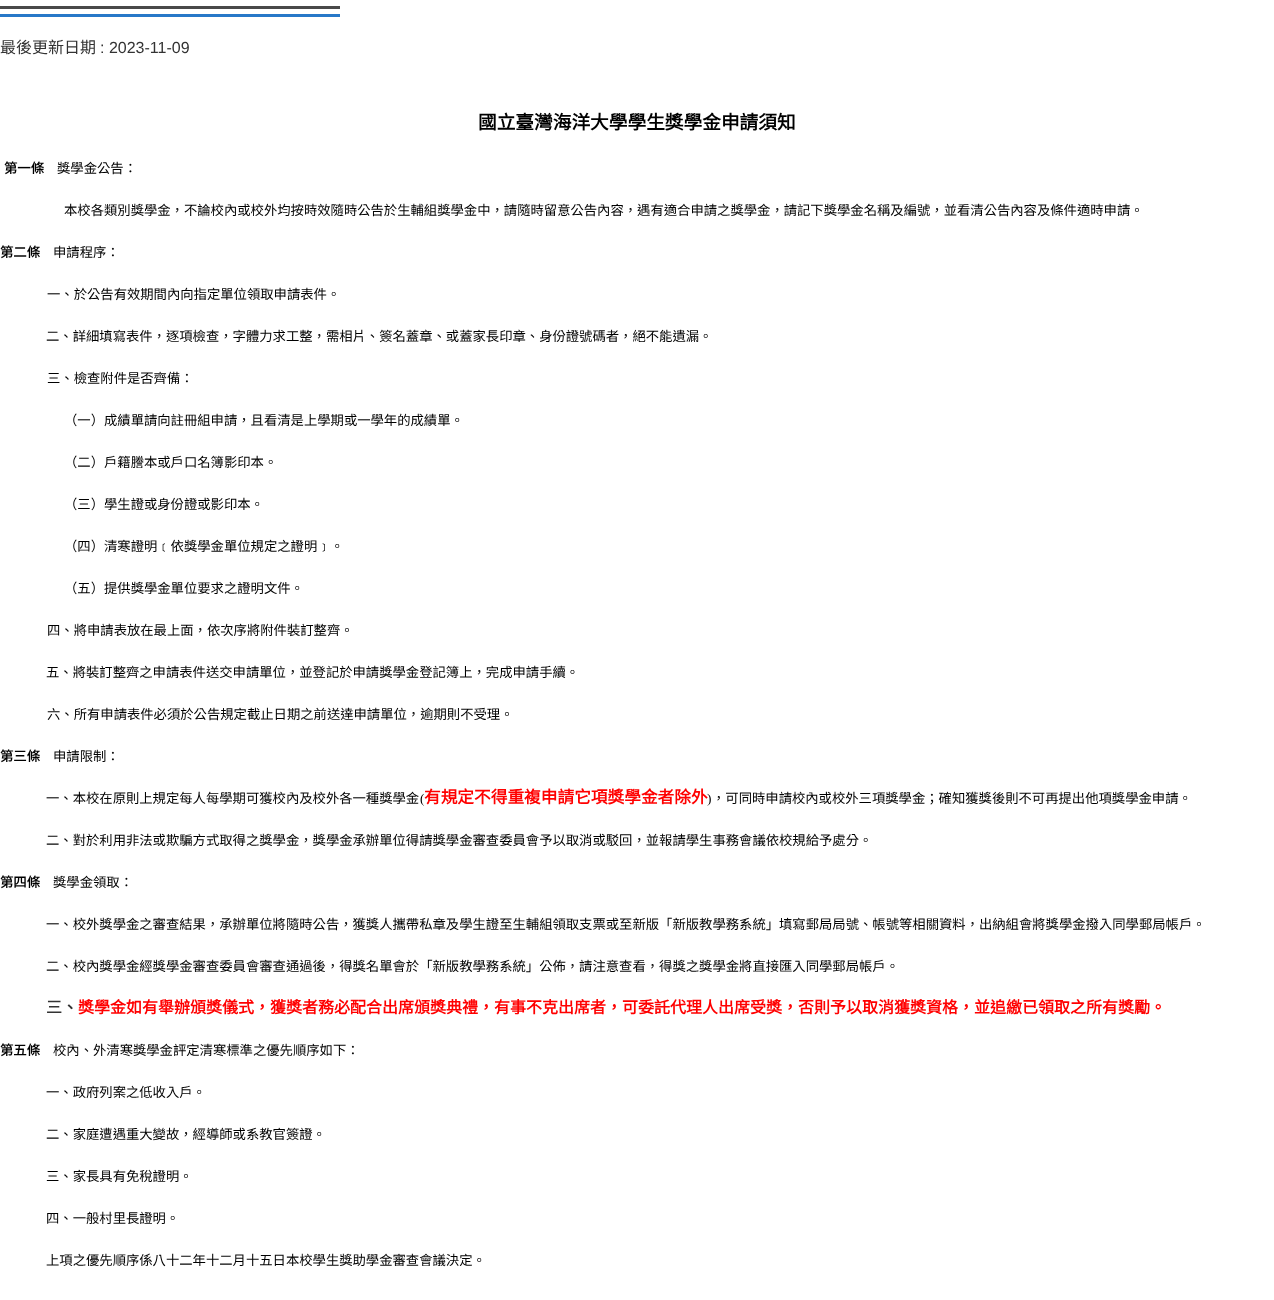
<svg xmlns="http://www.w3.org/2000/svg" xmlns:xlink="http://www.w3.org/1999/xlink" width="1274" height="1300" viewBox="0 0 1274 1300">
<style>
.cls-1{font:16px Noto Sans CJK TC;fill:#333333}
.cls-2{font:16px Liberation Sans;fill:#333333}
.cls-3{font:bold 18.7px Noto Sans CJK TC;fill:#000000}
.cls-4{font:bold 13.33px Noto Sans CJK TC;fill:#000000}
.cls-5{font:13.33px Noto Sans CJK TC;fill:#000000}
.cls-6{font:13.33px Liberation Serif;fill:#000000}
.cls-7{font:bold 16.7px Noto Sans CJK TC;fill:#ff0000}
.cls-8{font:bold 16px Noto Sans CJK TC;fill:#333333}
.cls-9{font:bold 16px Noto Sans CJK TC;fill:#ff0000}
</style>
<rect width="100%" height="100%" fill="#ffffff"/>
<rect fill="#2878c8" x="0" y="14" width="340" height="3"/>
<rect fill="#494949" x="0" y="6" width="340" height="3"/>
<text class="cls-1" x="0" y="53">最後更新日期</text>
<text class="cls-2" x="100" y="53">: 2023-11-09</text>
<text class="cls-3" x="478" y="129">國立臺灣海洋大學學生獎學金申請須知</text>
<text class="cls-4" x="4" y="173">第一條</text>
<text class="cls-5" x="57" y="173">獎學金公告：</text>
<text class="cls-5" x="64" y="215">本校各類別獎學金，不論校內或校外均按時效隨時公告於生輔組獎學金中，請隨時留意公告內容，遇有適合申請之獎學金，請記下獎學金名稱及編號，並看清公告內容及條件適時申請。</text>
<text class="cls-4" x="0" y="257">第二條</text>
<text class="cls-5" x="53" y="257">申請程序：</text>
<text class="cls-5" x="47" y="299">一、於公告有效期間內向指定單位領取申請表件。</text>
<text class="cls-5" x="46" y="341">二、詳細填寫表件，逐項檢查，字體力求工整，需相片、簽名蓋章、或蓋家長印章、身份證號碼者，絕不能遺漏。</text>
<text class="cls-5" x="47" y="383">三、檢查附件是否齊備：</text>
<text class="cls-5" x="64" y="425">（一）成績單請向註冊組申請，且看清是上學期或一學年的成績單。</text>
<text class="cls-5" x="64" y="467">（二）戶籍謄本或戶口名簿影印本。</text>
<text class="cls-5" x="64" y="509">（三）學生證或身份證或影印本。</text>
<text class="cls-5" x="64" y="551">（四）清寒證明﹝依獎學金單位規定之證明﹞。</text>
<text class="cls-5" x="64" y="593">（五）提供獎學金單位要求之證明文件。</text>
<text class="cls-5" x="47" y="635">四、將申請表放在最上面，依次序將附件裝訂整齊。</text>
<text class="cls-5" x="46" y="677">五、將裝訂整齊之申請表件送交申請單位，並登記於申請獎學金登記簿上，完成申請手續。</text>
<text class="cls-5" x="47" y="719">六、所有申請表件必須於公告規定截止日期之前送達申請單位，逾期則不受理。</text>
<text class="cls-4" x="0" y="761">第三條</text>
<text class="cls-5" x="53" y="761">申請限制：</text>
<text class="cls-5" x="46" y="803">一、本校在原則上規定每人每學期可獲校內及校外各一種獎學金</text>
<text class="cls-6" x="420" y="803">(</text>
<text class="cls-7" x="424" y="803">有規定不得重複申請它項獎學金者除外</text>
<text class="cls-6" x="707" y="803">)</text>
<text class="cls-5" x="712" y="803">，可同時申請校內或校外三項獎學金；確知獲獎後則不可再提出他項獎學金申請。</text>
<text class="cls-5" x="46" y="845">二、對於利用非法或欺騙方式取得之獎學金，獎學金承辦單位得請獎學金審查委員會予以取消或駁回，並報請學生事務會議依校規給予處分。</text>
<text class="cls-4" x="0" y="887">第四條</text>
<text class="cls-5" x="53" y="887">獎學金領取：</text>
<text class="cls-5" x="46" y="929">一、校外獎學金之審查結果，承辦單位將隨時公告，獲獎人攜帶私章及學生證至生輔組領取支票或至新版「新版教學務系統」填寫郵局局號、帳號等相關資料，出納組會將獎學金撥入同學郵局帳戶。</text>
<text class="cls-5" x="46" y="971">二、校內獎學金經獎學金審查委員會審查通過後，得獎名單會於「新版教學務系統」公佈，請注意查看，得獎之獎學金將直接匯入同學郵局帳戶。</text>
<text class="cls-8" x="46" y="1013">三、</text>
<text class="cls-9" x="78" y="1013">獎學金如有舉辦頒獎儀式，獲獎者務必配合出席頒獎典禮，有事不克出席者，可委託代理人出席受獎，否則予以取消獲獎資格，並追繳已領取之所有獎勵。</text>
<text class="cls-4" x="0" y="1055">第五條</text>
<text class="cls-5" x="53" y="1055">校內、外清寒獎學金評定清寒標準之優先順序如下：</text>
<text class="cls-5" x="46" y="1097">一、政府列案之低收入戶。</text>
<text class="cls-5" x="46" y="1139">二、家庭遭遇重大變故，經導師或系教官簽證。</text>
<text class="cls-5" x="46" y="1181">三、家長具有免稅證明。</text>
<text class="cls-5" x="46" y="1223">四、一般村里長證明。</text>
<text class="cls-5" x="46" y="1265">上項之優先順序係八十二年十二月十五日本校學生獎助學金審查會議決定。</text>
</svg>
